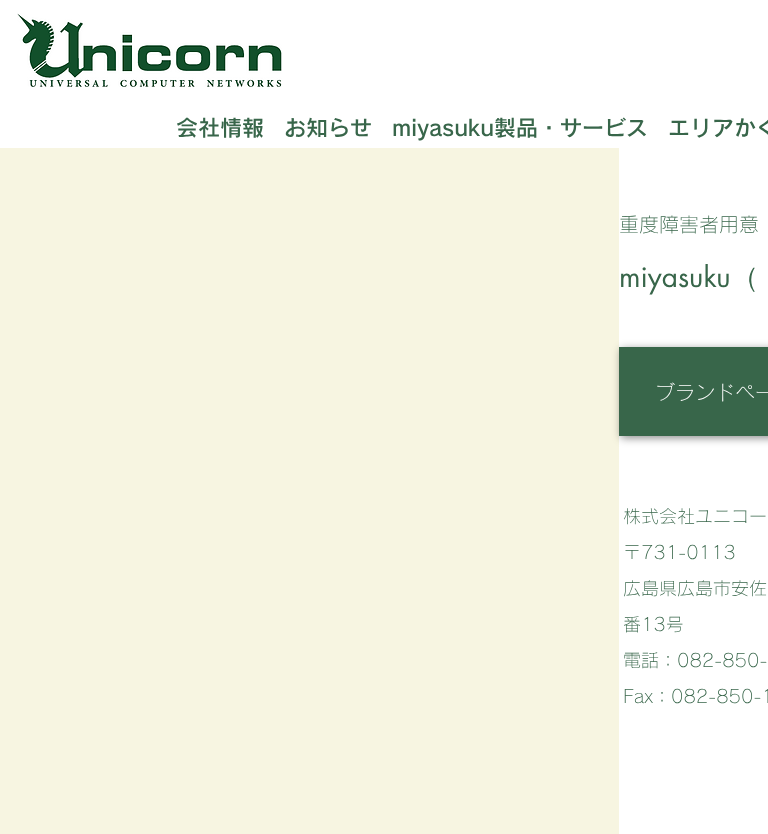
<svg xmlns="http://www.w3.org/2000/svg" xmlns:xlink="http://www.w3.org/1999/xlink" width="768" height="834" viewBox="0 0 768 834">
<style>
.cls-1{font:600 22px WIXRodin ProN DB;fill:#38664a}
.cls-2{font:300 20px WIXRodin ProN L;fill:#38664a}
.cls-3{font:28px futura;fill:#38664a}
.cls-4{font:500 28px WenQuanYi Zen Hei;fill:#38664a}
.cls-5{font:300 20px WIXRodin ProN L;fill:#ffffff}
.cls-6{font:300 18px WIXRodin ProN L;fill:#38664a}
</style>
<rect width="100%" height="100%" fill="#ffffff"/>
<image xlink:href="image0.png" x="17" y="13" width="265" height="74"/>
<rect fill="#f7f5e1" x="0" y="148" width="619" height="686"/>
<rect fill="#000000" fill-opacity="0.45" filter="blur(4px)" x="621" y="349" width="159" height="89"/>
<rect fill="#38664a" x="619" y="347" width="149" height="89"/>
<text class="cls-1" x="176" y="136">会社情報</text>
<text class="cls-1" x="284" y="136">お知らせ</text>
<text class="cls-1" x="392" y="136">miyasuku製品・サービス</text>
<text class="cls-1" x="668" y="136">エリアかく</text>
<text class="cls-2" x="619" y="232">重度障害者用意</text>
<text class="cls-3" x="619" y="287">miyasuku</text>
<text class="cls-4" x="731" y="287">（</text>
<text class="cls-5" x="655" y="400">ブランドペー</text>
<text class="cls-6" x="623" y="523">株式会社ユニコー</text>
<text class="cls-6" x="623" y="559">〒731-0113</text>
<text class="cls-6" x="623" y="595">広島県広島市安佐</text>
<text class="cls-6" x="623" y="631">番13号</text>
<text class="cls-6" x="623" y="667">電話：082-850-</text>
<text class="cls-6" x="623" y="703">Fax：082-850-1</text>
</svg>
